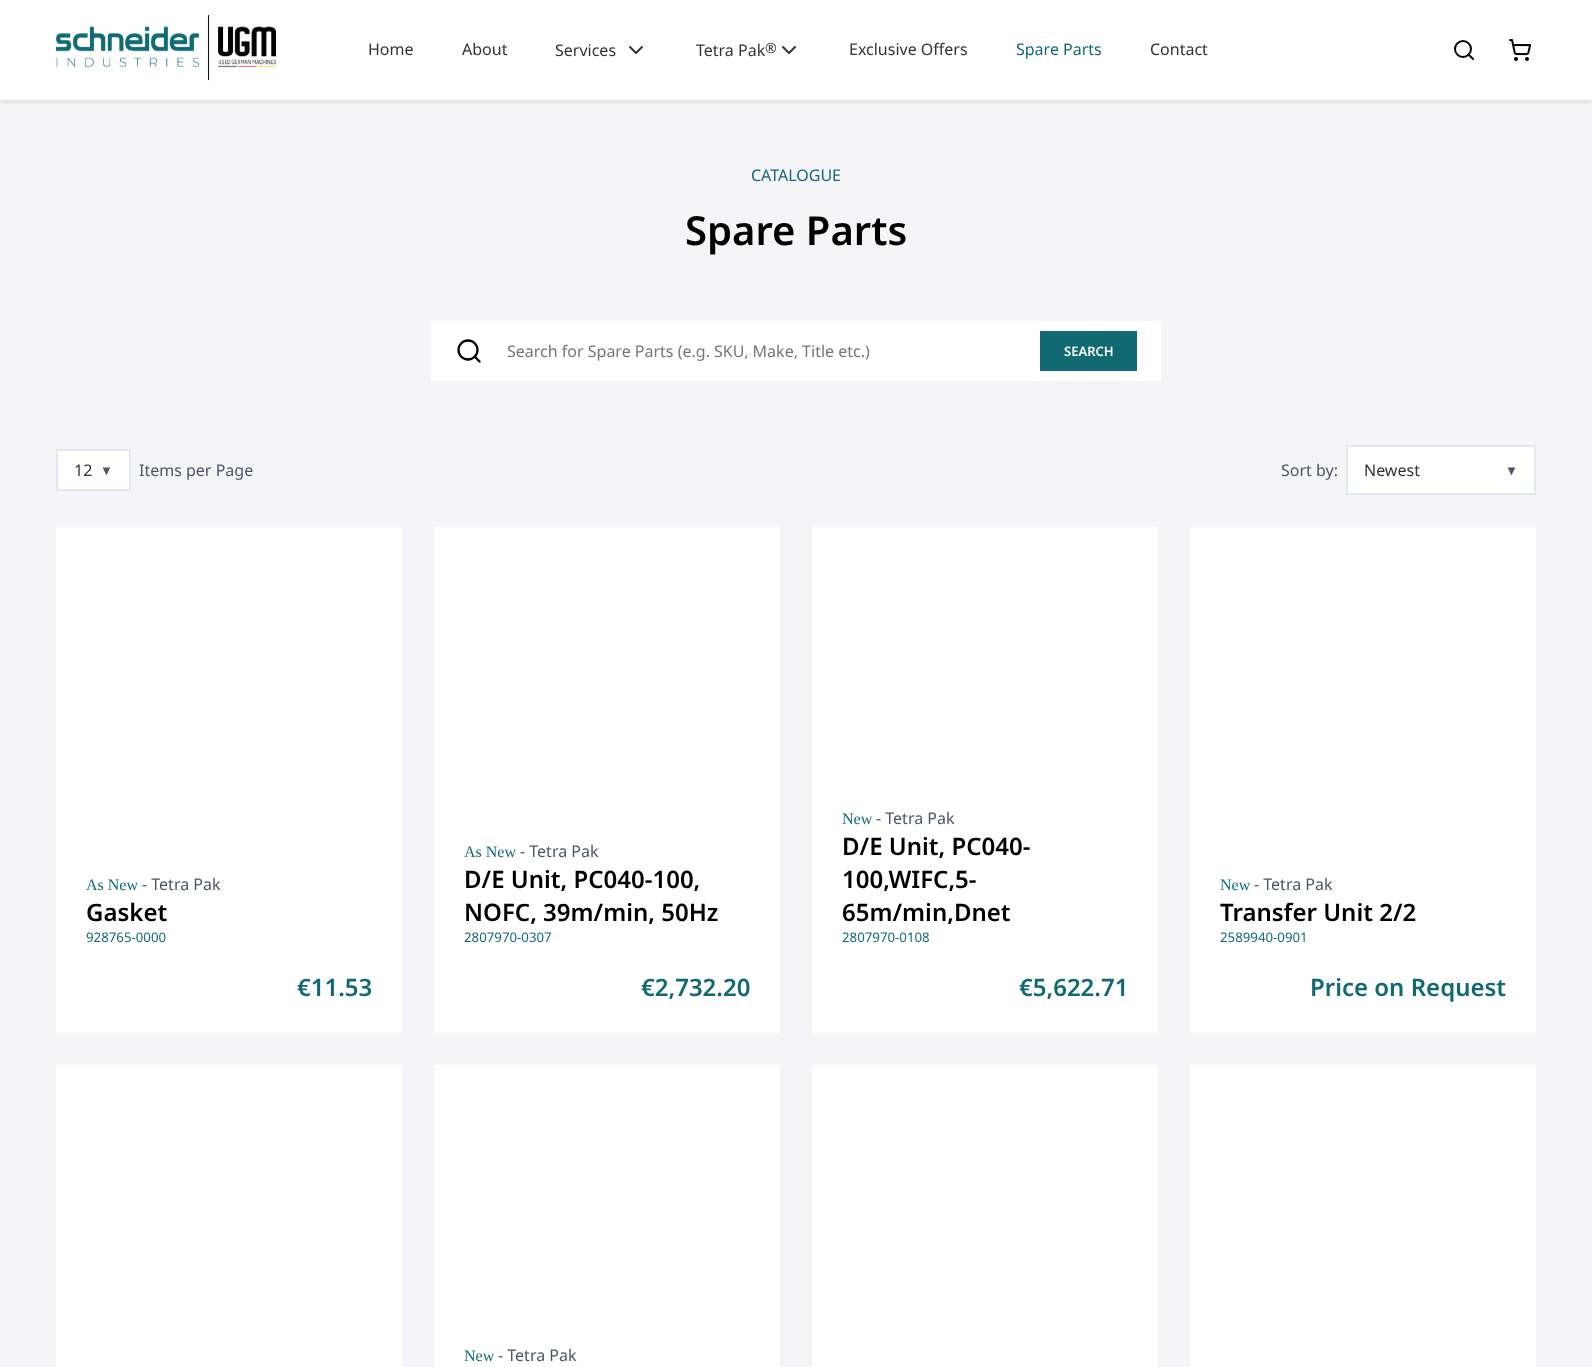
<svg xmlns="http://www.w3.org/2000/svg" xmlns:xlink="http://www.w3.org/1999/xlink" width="1592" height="1367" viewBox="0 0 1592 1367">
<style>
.cls-1{font:16px Noto Sans;fill:#333333}
.cls-2{font:14px Noto Sans;fill:#333333}
.cls-3{font:16px Noto Sans;fill:#116a72}
.cls-4{font:600 40px Noto Sans;fill:#000000}
.cls-5{font:16px Noto Sans;fill:#757575}
.cls-6{font:600 13px Noto Sans;fill:#ffffff}
.cls-7{font:13px Liberation Serif;fill:#4a5568}
.cls-8{font:16px Noto Sans;fill:#4a5568}
.cls-9{font:16px Liberation Serif;fill:#116a72}
.cls-10{font:600 24px Noto Sans;fill:#000000}
.cls-11{font:13.25px Noto Sans;fill:#116a72}
.cls-12{font:600 24px Noto Sans;fill:#116a72}
</style>
<defs>
<clipPath id="clip1"><rect x="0" y="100" width="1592" height="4"/></clipPath>
</defs>
<rect width="100%" height="100%" fill="#ffffff"/>
<rect fill="#f5f5f8" x="0" y="100" width="1592" height="1267"/>
<g clip-path="url(#clip1)">
<rect fill="#000000" fill-opacity="0.1" filter="blur(2px)" x="0" y="2" width="1592" height="100"/>
</g>
<image xlink:href="image0.png" x="56" y="14" width="220" height="67"/>
<path fill="none" stroke="#333333" stroke-width="2" stroke-linecap="round" stroke-linejoin="round" d="M630 47L636 53L642 47"/>
<path fill="none" stroke="#333333" stroke-width="2" stroke-linecap="round" stroke-linejoin="round" d="M783 47L789 53L795 47"/>
<circle fill="none" stroke="#000000" stroke-width="2" cx="1463" cy="49" r="8"/>
<path fill="none" stroke="#000000" stroke-width="2" stroke-linecap="round" stroke-linejoin="round" d="M1473 59L1468.5 54.5"/>
<image xlink:href="image1.png" x="1509" y="39" width="23" height="22"/>
<rect fill="#ffffff" x="431" y="321" width="730" height="60"/>
<circle fill="none" stroke="#000000" stroke-width="2.3" cx="468" cy="350" r="9.5"/>
<path fill="none" stroke="#000000" stroke-width="2.3" stroke-linecap="round" stroke-linejoin="round" d="M479.5 361.5L474.5 356.5"/>
<rect fill="#116a72" x="1040" y="331" width="97" height="40"/>
<rect fill="#ffffff" stroke="#e2e8f0" stroke-width="2" x="57" y="450" width="73" height="40"/>
<rect fill="#ffffff" stroke="#e2e8f0" stroke-width="2" x="1347" y="446" width="188" height="48"/>
<rect fill="#ffffff" x="56" y="527" width="346" height="506"/>
<rect fill="#ffffff" x="434" y="527" width="346" height="506"/>
<rect fill="#ffffff" x="812" y="527" width="346" height="506"/>
<rect fill="#ffffff" x="1190" y="527" width="346" height="506"/>
<rect fill="#ffffff" x="56" y="1065" width="346" height="302"/>
<rect fill="#ffffff" x="434" y="1065" width="346" height="302"/>
<rect fill="#ffffff" x="812" y="1065" width="346" height="302"/>
<rect fill="#ffffff" x="1190" y="1065" width="346" height="302"/>
<text class="cls-1" x="368" y="55">Home</text>
<text class="cls-1" x="462" y="55">About</text>
<text class="cls-1" x="555" y="56">Services</text>
<text class="cls-1" x="696" y="56">Tetra Pak</text>
<text class="cls-2" x="765" y="53">®</text>
<text class="cls-1" x="849" y="55">Exclusive Offers</text>
<text class="cls-3" x="1016" y="55">Spare Parts</text>
<text class="cls-1" x="1150" y="55">Contact</text>
<text class="cls-3" x="751" y="181">CATALOGUE</text>
<text class="cls-4" x="685" y="245">Spare Parts</text>
<text class="cls-5" x="507" y="357">Search for Spare Parts (e.g. SKU, Make, Title etc.)</text>
<text class="cls-6" x="1064" y="356">SEARCH</text>
<text class="cls-1" x="74" y="476">12</text>
<text class="cls-7" x="100" y="475">▼</text>
<text class="cls-8" x="139" y="476">Items per Page</text>
<text class="cls-8" x="1281" y="476">Sort by:</text>
<text class="cls-1" x="1364" y="476">Newest</text>
<text class="cls-7" x="1505" y="475">▼</text>
<text class="cls-9" x="86" y="890">As New</text>
<text class="cls-8" x="142" y="890">- Tetra Pak</text>
<text class="cls-10" x="86" y="921">Gasket</text>
<text class="cls-11" x="86" y="942">928765-0000</text>
<text class="cls-12" x="297" y="996">€11.53</text>
<text class="cls-9" x="464" y="857">As New</text>
<text class="cls-8" x="520" y="857">- Tetra Pak</text>
<text class="cls-10"><tspan x="464" y="888">D/E Unit, PC040-100,</tspan><tspan x="464" y="921">NOFC, 39m/min, 50Hz</tspan></text>
<text class="cls-11" x="464" y="942">2807970-0307</text>
<text class="cls-12" x="641" y="996">€2,732.20</text>
<text class="cls-9" x="842" y="824">New</text>
<text class="cls-8" x="876" y="824">- Tetra Pak</text>
<text class="cls-10"><tspan x="842" y="855">D/E Unit, PC040-</tspan><tspan x="842" y="888">100,WIFC,5-</tspan><tspan x="842" y="921">65m/min,Dnet</tspan></text>
<text class="cls-11" x="842" y="942">2807970-0108</text>
<text class="cls-12" x="1019" y="996">€5,622.71</text>
<text class="cls-9" x="1220" y="890">New</text>
<text class="cls-8" x="1254" y="890">- Tetra Pak</text>
<text class="cls-10" x="1220" y="921">Transfer Unit 2/2</text>
<text class="cls-11" x="1220" y="942">2589940-0901</text>
<text class="cls-12" x="1310" y="996">Price on Request</text>
<text class="cls-9" x="464" y="1361">New</text>
<text class="cls-8" x="498" y="1361">- Tetra Pak</text>
</svg>
